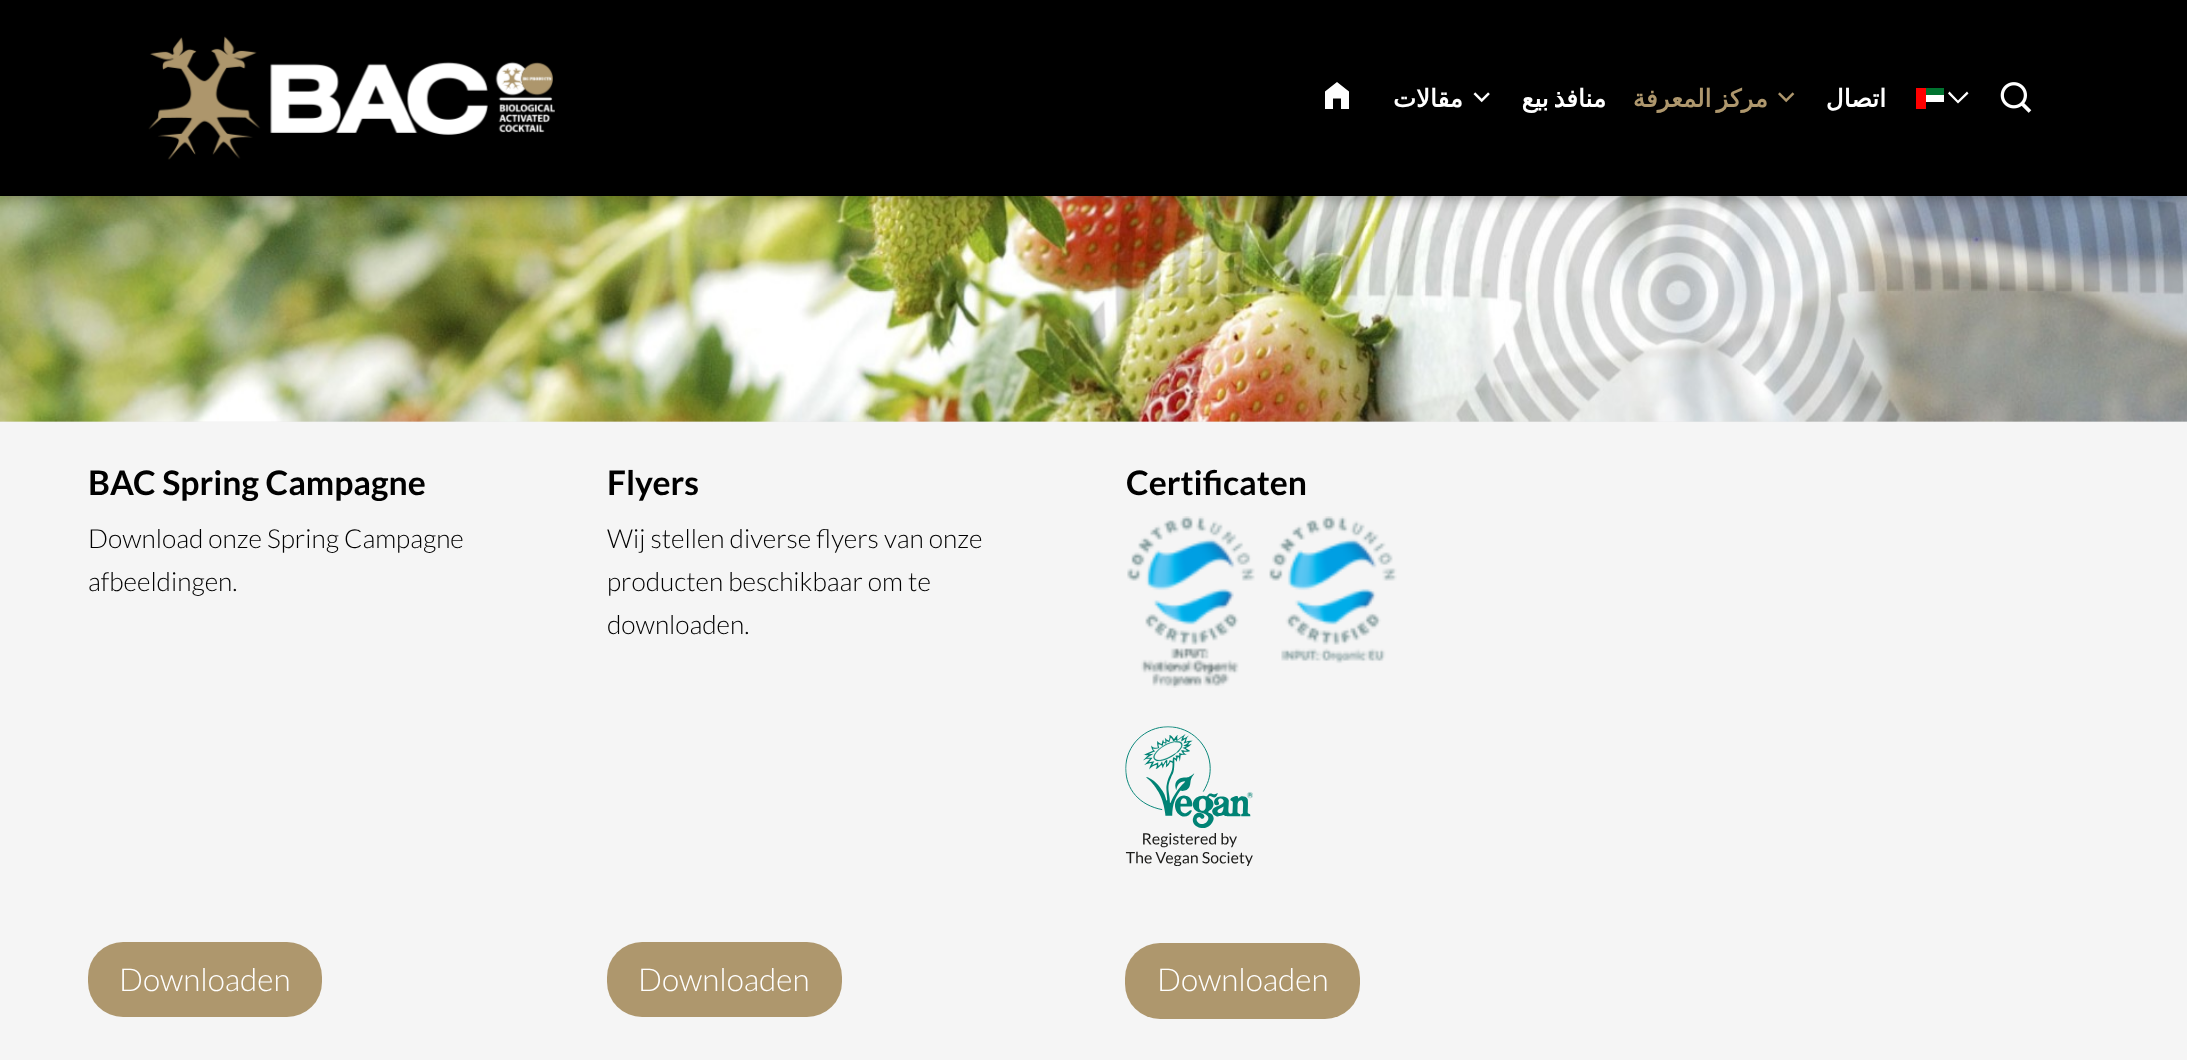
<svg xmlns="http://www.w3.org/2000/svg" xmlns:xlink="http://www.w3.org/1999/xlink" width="2187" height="1060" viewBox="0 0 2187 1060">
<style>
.cls-1{font:bold 24.5px DejaVu Sans;direction:rtl;fill:#ffffff}
.cls-2{font:bold 24.5px DejaVu Sans;direction:rtl;fill:#ae976d}
.cls-3{font:bold 33.75px Lato;fill:#000000}
.cls-4{font:300 26.25px Lato;fill:#000000}
.cls-5{font:300 31.5px Lato;fill:#ffffff}
</style>
<rect width="100%" height="100%" fill="#ebebeb"/>
<image xlink:href="image4.png" x="0" y="196" width="2187" height="226"/>
<rect fill="#000000" fill-opacity="0.3" filter="blur(7px)" x="0" y="2" width="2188" height="196"/>
<rect fill="#000000" x="0" y="0" width="2187" height="196"/>
<image xlink:href="image0.png" x="148" y="36" width="407" height="124"/>
<path fill="#ffffff" d="M1325 109V91.5L1337 82L1349 91.5V109H1341V98.5H1333V109Z"/>
<image xlink:href="image1.png" x="1473" y="92" width="17" height="11"/>
<image xlink:href="image2.png" x="1778" y="92" width="17" height="11"/>
<rect fill="#00732f" x="1926" y="88" width="18" height="7"/>
<rect fill="#ffffff" x="1926" y="95" width="18" height="7"/>
<rect fill="#ff0000" x="1916" y="88" width="10" height="21"/>
<path fill="#ffffff" d="M1958 103.5L1948 93.5L1949.5 91.5L1958 100.5L1967 91.5L1968.5 93.5Z"/>
<image xlink:href="image3.png" x="2000" y="82" width="32" height="31"/>
<rect fill="#f5f5f5" x="0" y="422" width="2187" height="638"/>
<rect fill="#ae976d" x="88" y="942" width="234" height="75" rx="35"/>
<rect fill="#ae976d" x="607" y="942" width="235" height="75" rx="35"/>
<image xlink:href="image5.png" x="1127" y="516" width="270" height="172"/>
<image xlink:href="image6.png" x="1125" y="726" width="128" height="140"/>
<rect fill="#ae976d" x="1125" y="943" width="235" height="76" rx="35"/>
<text class="cls-1" x="1463" y="107">مقالات</text>
<text class="cls-1" x="1606" y="107" word-spacing="-3">منافذ بيع</text>
<text class="cls-2" x="1768" y="107" word-spacing="-3">مركز المعرفة</text>
<text class="cls-1" x="1886" y="107">اتصال</text>
<text class="cls-3" x="88" y="495">BAC Spring Campagne</text>
<text class="cls-4"><tspan x="88" y="548">Download onze Spring Campagne</tspan><tspan x="88" y="591">afbeeldingen.</tspan></text>
<text class="cls-5" x="119" y="991">Downloaden</text>
<text class="cls-3" x="607" y="495">Flyers</text>
<text class="cls-4"><tspan x="607" y="548">Wij stellen diverse flyers van onze</tspan><tspan x="607" y="591">producten beschikbaar om te</tspan><tspan x="607" y="634">downloaden.</tspan></text>
<text class="cls-5" x="638" y="991">Downloaden</text>
<text class="cls-3" x="1126" y="495">Certificaten</text>
<text class="cls-5" x="1157" y="991">Downloaden</text>
</svg>
